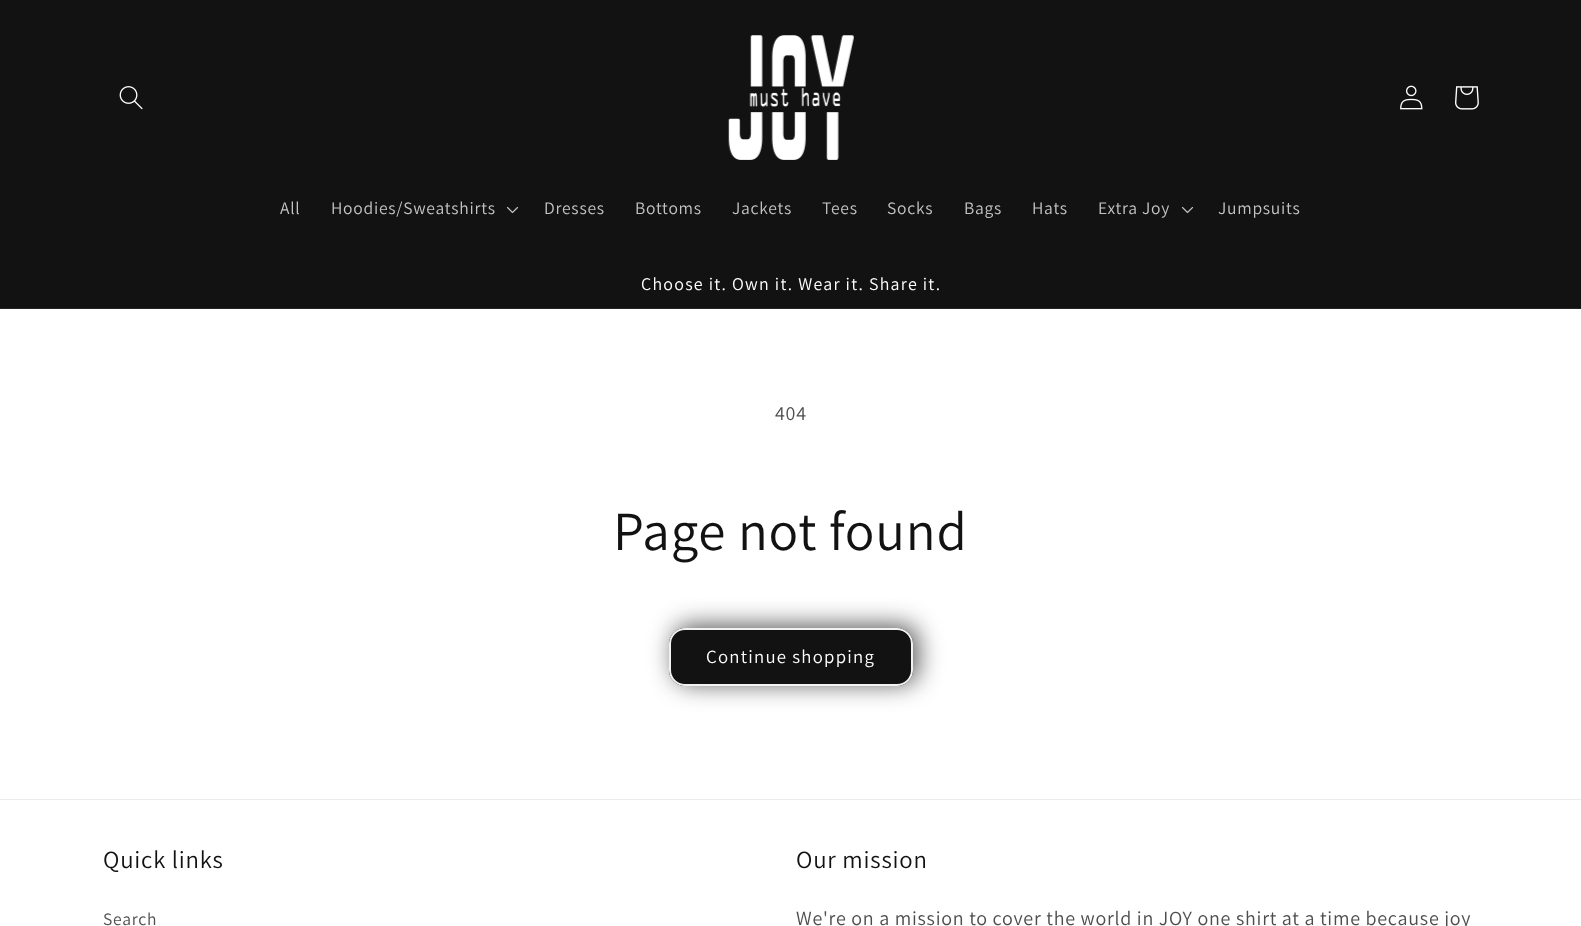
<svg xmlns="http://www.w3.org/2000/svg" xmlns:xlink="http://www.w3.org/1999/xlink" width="1581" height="926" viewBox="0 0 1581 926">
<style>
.cls-1{font:17.5px Assistant;letter-spacing:0.75px;fill:#c4c4c4}
.cls-2{font:17.9px Assistant;letter-spacing:1.25px;fill:#ffffff}
.cls-3{font:20px Assistant;letter-spacing:0.75px;fill:#4d4d4d}
.cls-4{font:55px Assistant;letter-spacing:0.8px;fill:#121212}
.cls-5{font:18.75px Assistant;letter-spacing:1.25px;fill:#ffffff}
.cls-6{font:24.75px Assistant;letter-spacing:0.8px;fill:#121212}
.cls-7{font:17.5px Assistant;letter-spacing:0.75px;fill:#4d4d4d}
</style>
<rect width="100%" height="100%" fill="#ffffff"/>
<rect fill="#121212" x="0" y="0" width="1581" height="308"/>
<image xlink:href="image0.png" x="119" y="86" width="24" height="24"/>
<image xlink:href="image1.png" x="728" y="35" width="126" height="125"/>
<image xlink:href="image2.png" x="1400" y="85" width="23" height="25"/>
<image xlink:href="image3.png" x="1455" y="86" width="24" height="24"/>
<image xlink:href="image4.png" x="506" y="206" width="13" height="8"/>
<image xlink:href="image4.png" x="1181" y="206" width="13" height="8"/>
<rect fill="#252525" x="0" y="308" width="1581" height="1"/>
<rect fill="#121212" fill-opacity="0.7" filter="blur(12.5px)" x="674" y="625" width="244" height="59" rx="16"/>
<rect fill="#121212" x="669" y="628" width="244" height="58" rx="16"/>
<rect fill="none" stroke="#121212" x="669.5" y="628.5" width="243" height="57" rx="15.5"/>
<rect fill="none" stroke="#ffffff" stroke-opacity="0.95" stroke-width="2" x="670" y="629" width="242" height="56" rx="15"/>
<rect fill="#ececec" x="0" y="799" width="1581" height="1"/>
<text class="cls-1" x="280" y="214">All</text>
<text class="cls-1" x="331" y="214">Hoodies/Sweatshirts</text>
<text class="cls-1" x="544" y="214">Dresses</text>
<text class="cls-1" x="635" y="214">Bottoms</text>
<text class="cls-1" x="732" y="214">Jackets</text>
<text class="cls-1" x="822" y="214">Tees</text>
<text class="cls-1" x="887" y="214">Socks</text>
<text class="cls-1" x="964" y="214">Bags</text>
<text class="cls-1" x="1032" y="214">Hats</text>
<text class="cls-1" x="1098" y="214">Extra Joy</text>
<text class="cls-1" x="1218" y="214">Jumpsuits</text>
<text class="cls-2" x="641" y="290">Choose it. Own it. Wear it. Share it.</text>
<text class="cls-3" x="775" y="420">404</text>
<text class="cls-4" x="613" y="550">Page not found</text>
<text class="cls-5" x="706" y="663">Continue shopping</text>
<text class="cls-6" x="103" y="868">Quick links</text>
<text class="cls-7" x="103" y="925">Search</text>
<text class="cls-6" x="796" y="868">Our mission</text>
<text class="cls-3" x="796" y="925">We're on a mission to cover the world in JOY one shirt at a time because joy</text>
</svg>
